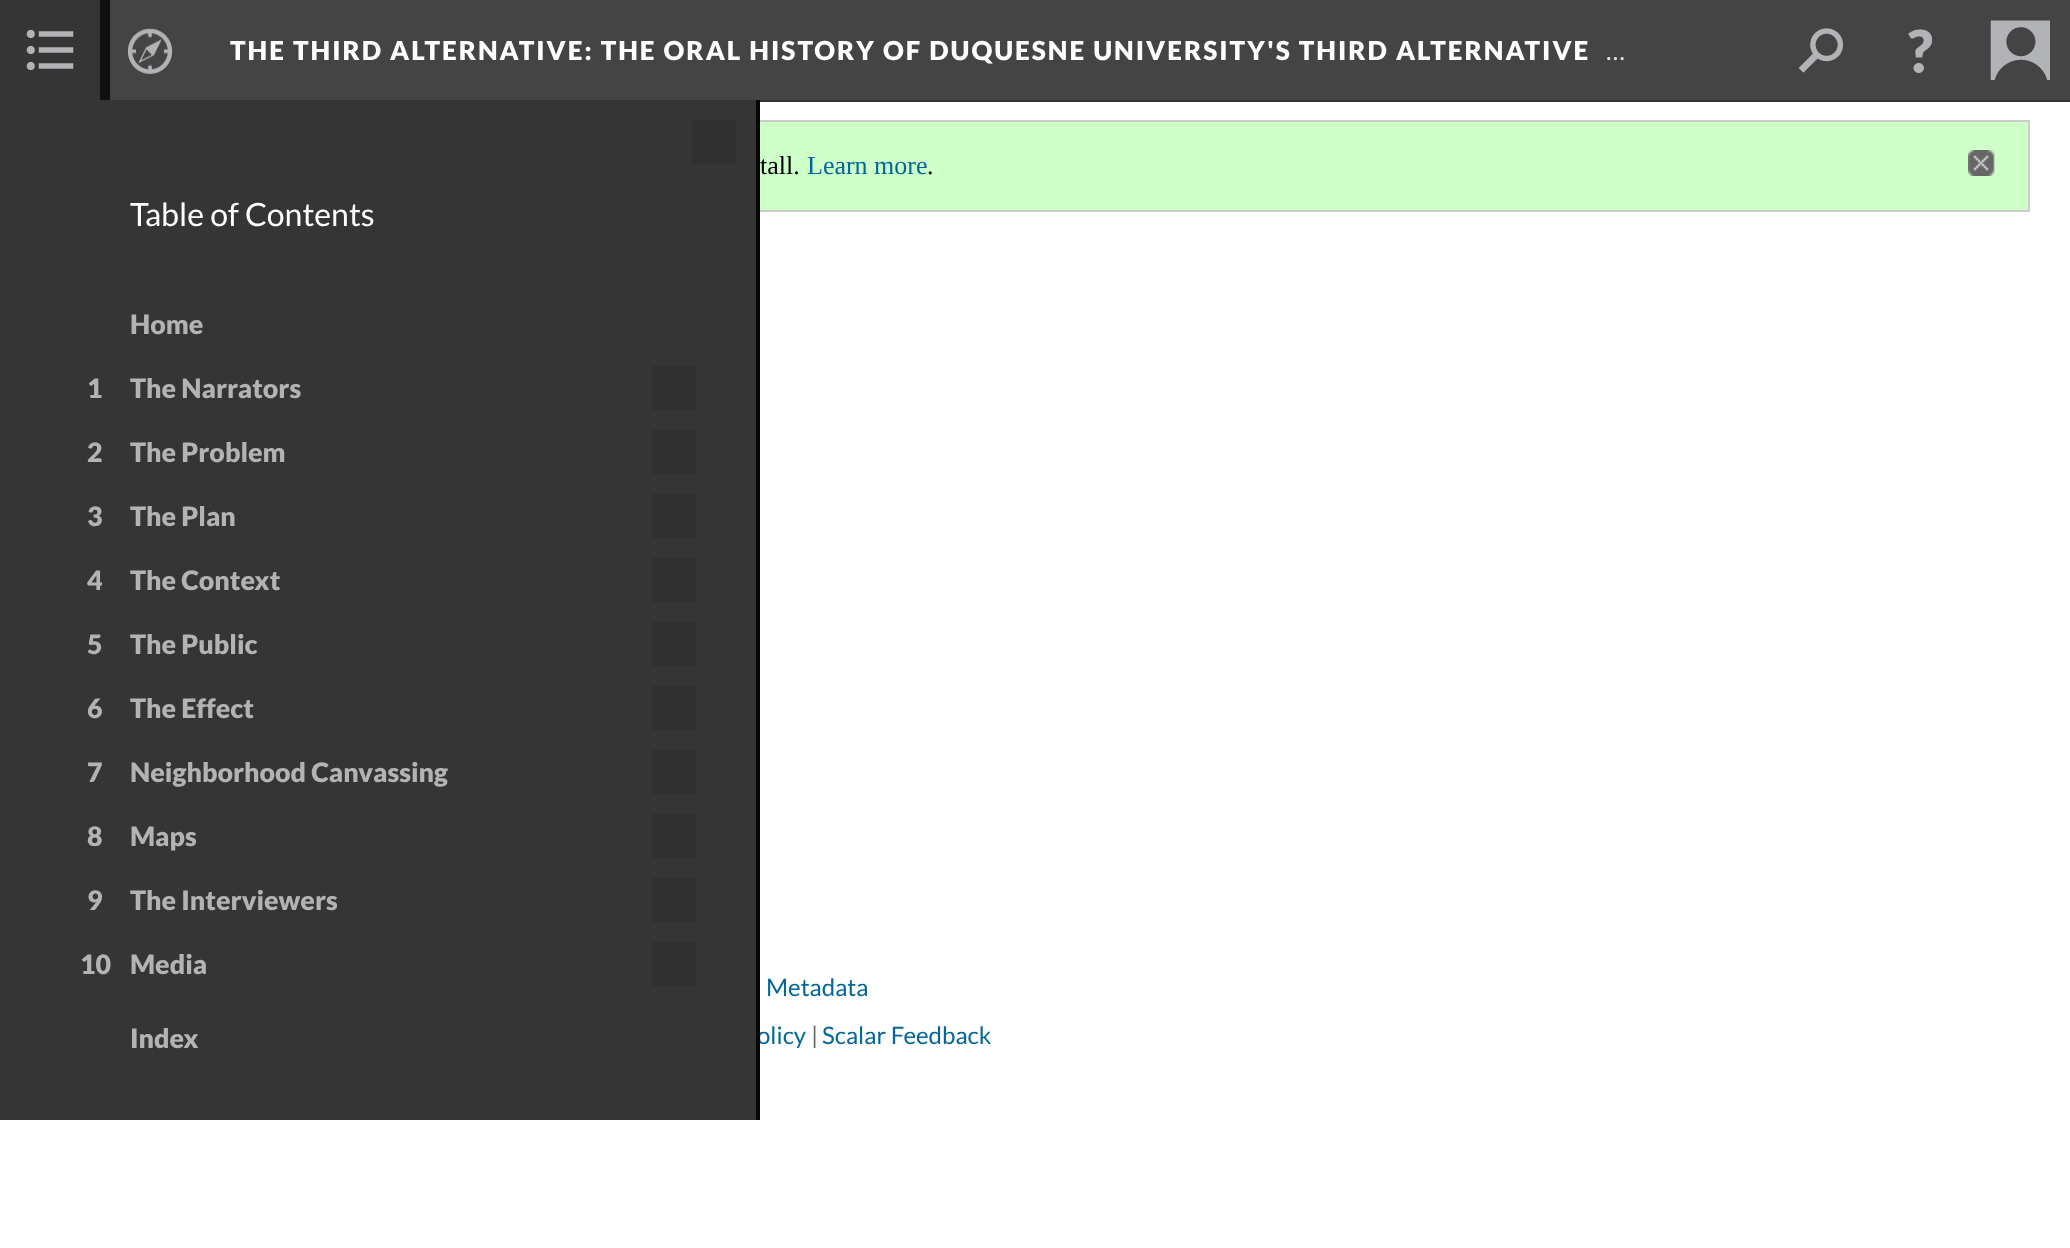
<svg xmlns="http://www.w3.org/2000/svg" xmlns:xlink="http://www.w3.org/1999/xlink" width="2070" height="1248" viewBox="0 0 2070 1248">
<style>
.cls-1{font:900 26px Lato;letter-spacing:2px;fill:#ffffff}
.cls-2{font:26px Lato;letter-spacing:2px;fill:#dddddf}
.cls-3{font:32px Lato;fill:#ffffff}
.cls-4{font:900 26.75px Lato;fill:#b3b3b3}
.cls-5{font:26px Liberation Serif;fill:#000000}
.cls-6{font:26px Liberation Serif;fill:#026697}
.cls-7{font:24px Lato;fill:#026697}
.cls-8{font:24px Lato;fill:#666666}
</style>
<rect width="100%" height="100%" fill="#ffffff"/>
<rect fill="#444444" x="110" y="0" width="1960" height="100"/>
<rect fill="#333333" x="760" y="100" width="1310" height="2"/>
<image xlink:href="image0.png" x="1798" y="28" width="45" height="45"/>
<image xlink:href="image1.png" x="1908" y="29" width="25" height="44"/>
<image xlink:href="image2.png" x="1990" y="20" width="60" height="60"/>
<image xlink:href="image3.png" x="128" y="28" width="45" height="46"/>
<rect fill="#353535" x="0" y="0" width="100" height="100"/>
<image xlink:href="image4.png" x="26" y="30" width="48" height="40"/>
<rect fill="none" stroke="#101010" stroke-width="10" x="-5" y="-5" width="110" height="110"/>
<rect fill="#ceffc8" x="760" y="122" width="1268" height="88"/>
<rect fill="none" stroke="#cccccc" stroke-width="2" x="21" y="121" width="2008" height="90"/>
<rect fill="#353535" x="0" y="100" width="756" height="1020"/>
<rect fill="#303030" x="692" y="120" width="44" height="44"/>
<rect fill="#303030" x="652" y="366" width="44" height="44"/>
<rect fill="#303030" x="652" y="430" width="44" height="44"/>
<rect fill="#303030" x="652" y="494" width="44" height="44"/>
<rect fill="#303030" x="652" y="558" width="44" height="44"/>
<rect fill="#303030" x="652" y="622" width="44" height="44"/>
<rect fill="#303030" x="652" y="686" width="44" height="44"/>
<rect fill="#303030" x="652" y="750" width="44" height="44"/>
<rect fill="#303030" x="652" y="814" width="44" height="44"/>
<rect fill="#303030" x="652" y="878" width="44" height="44"/>
<rect fill="#303030" x="652" y="942" width="44" height="44"/>
<image xlink:href="image5.png" x="1968" y="150" width="27" height="26"/>
<text class="cls-1" x="230" y="60">THE THIRD ALTERNATIVE: THE ORAL HISTORY OF DUQUESNE UNIVERSITY'S THIRD ALTERNATIVE</text>
<text class="cls-2" x="1606" y="60">…</text>
<text class="cls-3" x="130" y="226">Table of Contents</text>
<text class="cls-4" x="130" y="334">Home</text>
<text class="cls-4" x="87" y="398">1</text>
<text class="cls-4" x="130" y="398">The Narrators</text>
<text class="cls-4" x="87" y="462">2</text>
<text class="cls-4" x="130" y="462">The Problem</text>
<text class="cls-4" x="87" y="526">3</text>
<text class="cls-4" x="130" y="526">The Plan</text>
<text class="cls-4" x="87" y="590">4</text>
<text class="cls-4" x="130" y="590">The Context</text>
<text class="cls-4" x="87" y="654">5</text>
<text class="cls-4" x="130" y="654">The Public</text>
<text class="cls-4" x="87" y="718">6</text>
<text class="cls-4" x="130" y="718">The Effect</text>
<text class="cls-4" x="87" y="782">7</text>
<text class="cls-4" x="130" y="782">Neighborhood Canvassing</text>
<text class="cls-4" x="87" y="846">8</text>
<text class="cls-4" x="130" y="846">Maps</text>
<text class="cls-4" x="87" y="910">9</text>
<text class="cls-4" x="130" y="910">The Interviewers</text>
<text class="cls-4" x="80" y="974">10</text>
<text class="cls-4" x="130" y="974">Media</text>
<text class="cls-4" x="130" y="1048">Index</text>
<text class="cls-5" x="760" y="174">tall.</text>
<text class="cls-6" x="807" y="174">Learn more</text>
<text class="cls-5" x="927" y="174">.</text>
<text class="cls-7" x="766" y="996">Metadata</text>
<text class="cls-7" x="757" y="1044">olicy</text>
<rect fill="#070707" x="756" y="100" width="4" height="1020"/>
<text class="cls-8" x="811" y="1044">|</text>
<text class="cls-7" x="822" y="1044">Scalar Feedback</text>
</svg>
